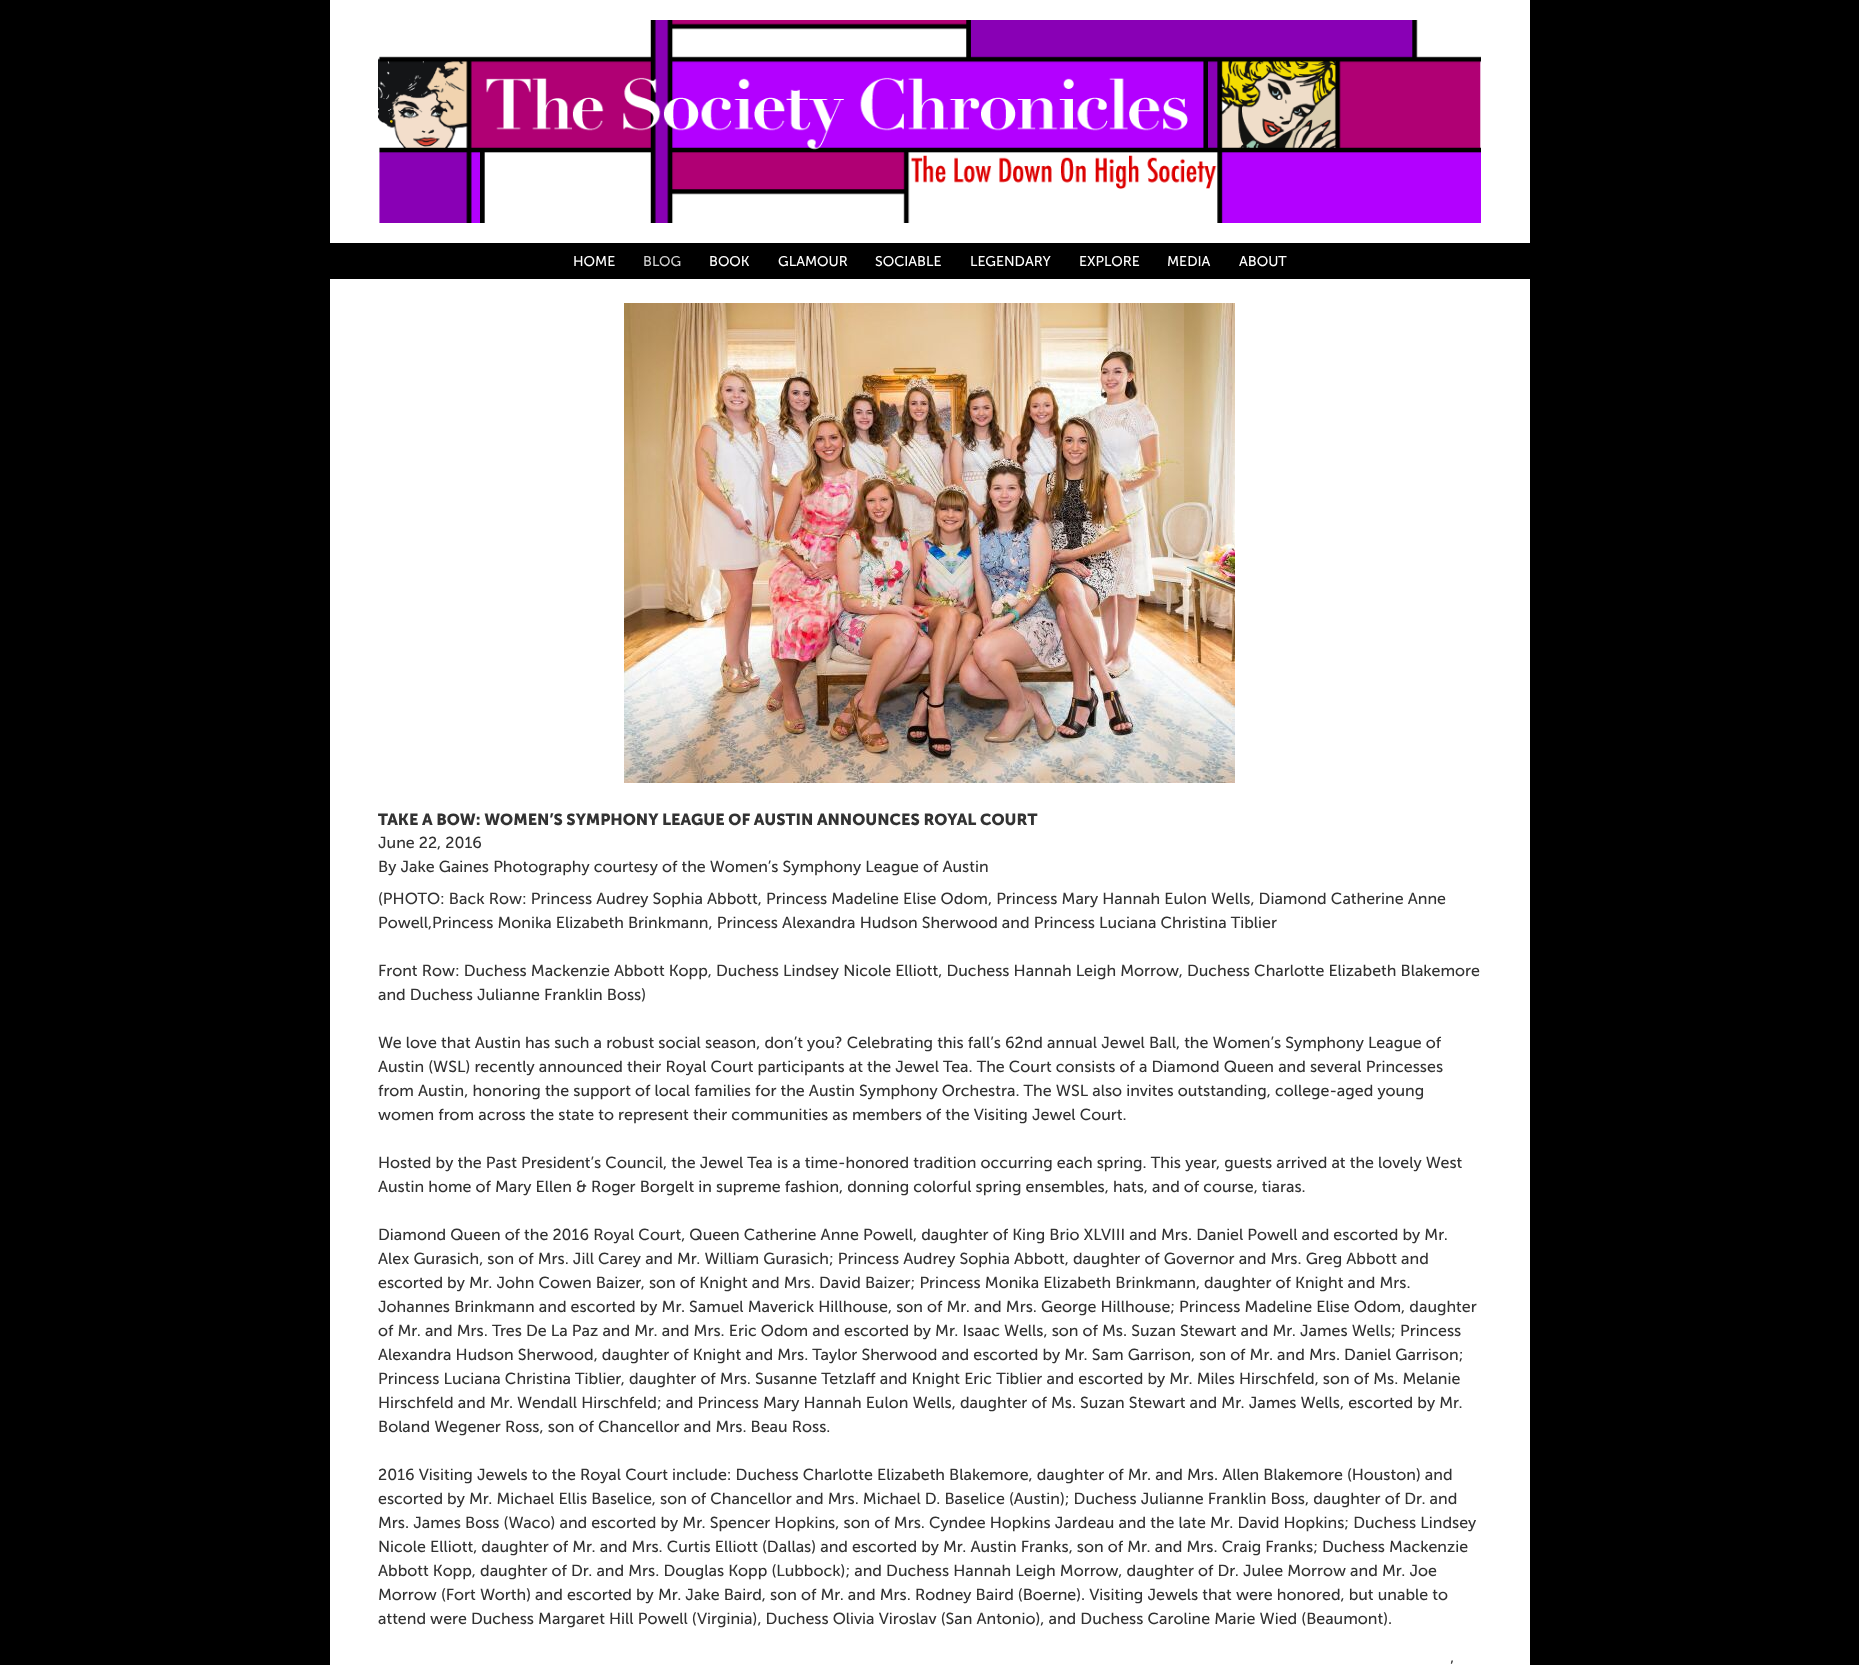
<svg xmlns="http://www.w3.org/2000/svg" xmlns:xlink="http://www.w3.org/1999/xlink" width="1859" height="1665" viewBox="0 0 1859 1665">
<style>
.cls-1{font:14px Museo Sans;fill:#ffffff}
.cls-2{font:14px Museo Sans;fill:#d1d1d1}
.cls-3{font:bold 16px Museo Sans;fill:#333333}
.cls-4{font:16px Museo Sans;fill:#333333}
</style>
<rect width="100%" height="100%" fill="#000000"/>
<rect fill="#ffffff" x="330" y="0" width="1200" height="1665"/>
<image xlink:href="image0.png" x="378" y="20" width="1103" height="203"/>
<rect fill="#000000" x="330" y="243" width="1200" height="36"/>
<image xlink:href="image1.png" x="624" y="303" width="611" height="480"/>
<text class="cls-1" x="573" y="266">HOME</text>
<text class="cls-2" x="643" y="266">BLOG</text>
<text class="cls-1" x="709" y="266">BOOK</text>
<text class="cls-1" x="778" y="266">GLAMOUR</text>
<text class="cls-1" x="875" y="266">SOCIABLE</text>
<text class="cls-1" x="970" y="266">LEGENDARY</text>
<text class="cls-1" x="1079" y="266">EXPLORE</text>
<text class="cls-1" x="1167" y="266">MEDIA</text>
<text class="cls-1" x="1239" y="266">ABOUT</text>
<text class="cls-3" x="378" y="825">TAKE A BOW: WOMEN’S SYMPHONY LEAGUE OF AUSTIN ANNOUNCES ROYAL COURT</text>
<text class="cls-4"><tspan x="378" y="848">June 22, 2016</tspan><tspan x="378" y="872">By Jake Gaines Photography courtesy of the Women’s Symphony League of Austin</tspan></text>
<text class="cls-4"><tspan x="378" y="904">(PHOTO: Back Row: Princess Audrey Sophia Abbott, Princess Madeline Elise Odom, Princess Mary Hannah Eulon Wells, Diamond Catherine Anne</tspan><tspan x="378" y="928">Powell,Princess Monika Elizabeth Brinkmann, Princess Alexandra Hudson Sherwood and Princess Luciana Christina Tiblier</tspan></text>
<text class="cls-4"><tspan x="378" y="976">Front Row: Duchess Mackenzie Abbott Kopp, Duchess Lindsey Nicole Elliott, Duchess Hannah Leigh Morrow, Duchess Charlotte Elizabeth Blakemore</tspan><tspan x="378" y="1000">and Duchess Julianne Franklin Boss)</tspan></text>
<text class="cls-4"><tspan x="378" y="1048">We love that Austin has such a robust social season, don’t you? Celebrating this fall’s 62nd annual Jewel Ball, the Women’s Symphony League of</tspan><tspan x="378" y="1072">Austin (WSL) recently announced their Royal Court participants at the Jewel Tea. The Court consists of a Diamond Queen and several Princesses</tspan><tspan x="378" y="1096">from Austin, honoring the support of local families for the Austin Symphony Orchestra. The WSL also invites outstanding, college-aged young</tspan><tspan x="378" y="1120">women from across the state to represent their communities as members of the Visiting Jewel Court.</tspan></text>
<text class="cls-4"><tspan x="378" y="1168">Hosted by the Past President’s Council, the Jewel Tea is a time-honored tradition occurring each spring. This year, guests arrived at the lovely West</tspan><tspan x="378" y="1192">Austin home of Mary Ellen &amp; Roger Borgelt in supreme fashion, donning colorful spring ensembles, hats, and of course, tiaras.</tspan></text>
<text class="cls-4"><tspan x="378" y="1240">Diamond Queen of the 2016 Royal Court, Queen Catherine Anne Powell, daughter of King Brio XLVIII and Mrs. Daniel Powell and escorted by Mr.</tspan><tspan x="378" y="1264">Alex Gurasich, son of Mrs. Jill Carey and Mr. William Gurasich; Princess Audrey Sophia Abbott, daughter of Governor and Mrs. Greg Abbott and</tspan><tspan x="378" y="1288">escorted by Mr. John Cowen Baizer, son of Knight and Mrs. David Baizer; Princess Monika Elizabeth Brinkmann, daughter of Knight and Mrs.</tspan><tspan x="378" y="1312">Johannes Brinkmann and escorted by Mr. Samuel Maverick Hillhouse, son of Mr. and Mrs. George Hillhouse; Princess Madeline Elise Odom, daughter</tspan><tspan x="378" y="1336">of Mr. and Mrs. Tres De La Paz and Mr. and Mrs. Eric Odom and escorted by Mr. Isaac Wells, son of Ms. Suzan Stewart and Mr. James Wells; Princess</tspan><tspan x="378" y="1360">Alexandra Hudson Sherwood, daughter of Knight and Mrs. Taylor Sherwood and escorted by Mr. Sam Garrison, son of Mr. and Mrs. Daniel Garrison;</tspan><tspan x="378" y="1384">Princess Luciana Christina Tiblier, daughter of Mrs. Susanne Tetzlaff and Knight Eric Tiblier and escorted by Mr. Miles Hirschfeld, son of Ms. Melanie</tspan><tspan x="378" y="1408">Hirschfeld and Mr. Wendall Hirschfeld; and Princess Mary Hannah Eulon Wells, daughter of Ms. Suzan Stewart and Mr. James Wells, escorted by Mr.</tspan><tspan x="378" y="1432">Boland Wegener Ross, son of Chancellor and Mrs. Beau Ross.</tspan></text>
<text class="cls-4"><tspan x="378" y="1480">2016 Visiting Jewels to the Royal Court include: Duchess Charlotte Elizabeth Blakemore, daughter of Mr. and Mrs. Allen Blakemore (Houston) and</tspan><tspan x="378" y="1504">escorted by Mr. Michael Ellis Baselice, son of Chancellor and Mrs. Michael D. Baselice (Austin); Duchess Julianne Franklin Boss, daughter of Dr. and</tspan><tspan x="378" y="1528">Mrs. James Boss (Waco) and escorted by Mr. Spencer Hopkins, son of Mrs. Cyndee Hopkins Jardeau and the late Mr. David Hopkins; Duchess Lindsey</tspan><tspan x="378" y="1552">Nicole Elliott, daughter of Mr. and Mrs. Curtis Elliott (Dallas) and escorted by Mr. Austin Franks, son of Mr. and Mrs. Craig Franks; Duchess Mackenzie</tspan><tspan x="378" y="1576">Abbott Kopp, daughter of Dr. and Mrs. Douglas Kopp (Lubbock); and Duchess Hannah Leigh Morrow, daughter of Dr. Julee Morrow and Mr. Joe</tspan><tspan x="378" y="1600">Morrow (Fort Worth) and escorted by Mr. Jake Baird, son of Mr. and Mrs. Rodney Baird (Boerne). Visiting Jewels that were honored, but unable to</tspan><tspan x="378" y="1624">attend were Duchess Margaret Hill Powell (Virginia), Duchess Olivia Viroslav (San Antonio), and Duchess Caroline Marie Wied (Beaumont).</tspan></text>
<text class="cls-4" x="1450" y="1672">’</text>
</svg>
